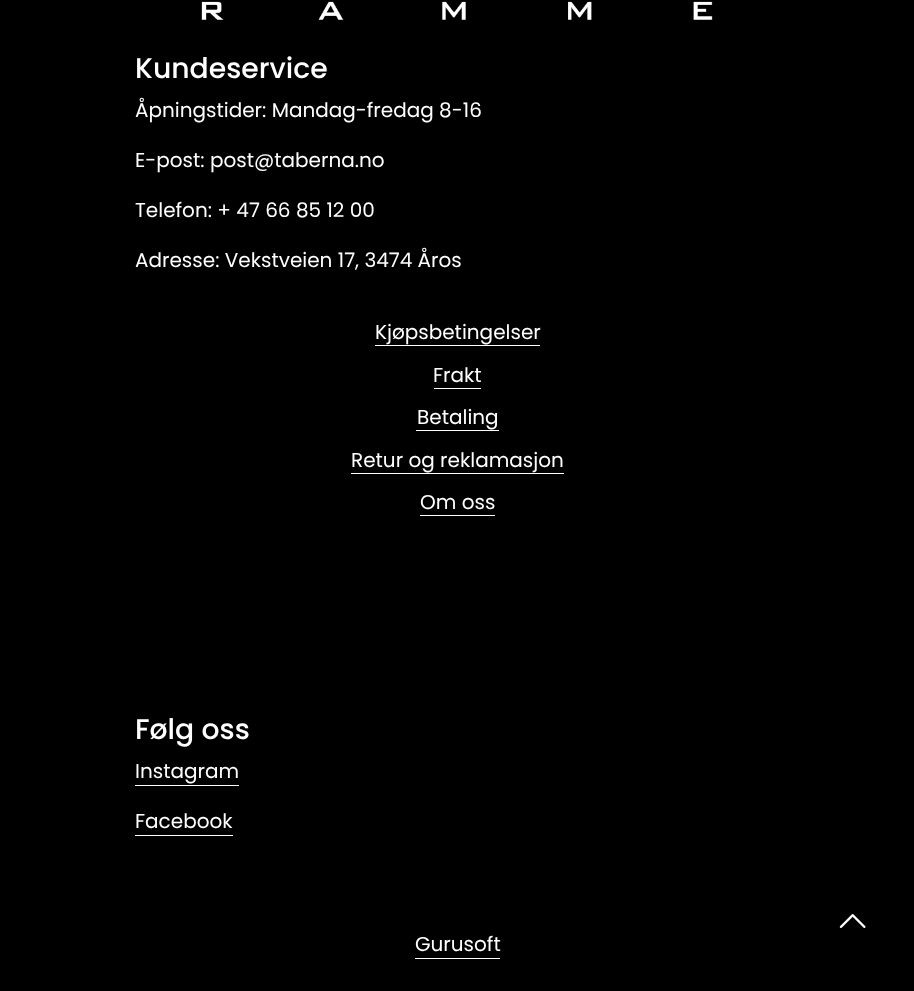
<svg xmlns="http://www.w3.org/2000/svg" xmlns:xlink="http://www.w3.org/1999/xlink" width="914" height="991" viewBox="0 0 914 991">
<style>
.cls-1{font:500 28.25px Poppins;fill:#ffffff}
.cls-2{font:20px Poppins;fill:#ffffff}
</style>
<rect width="100%" height="100%" fill="#000000"/>
<image xlink:href="image0.png" x="201" y="1" width="512" height="19"/>
<rect fill="#ffffff" x="375" y="345" width="165" height="1"/>
<rect fill="#ffffff" x="434" y="388" width="47" height="1"/>
<rect fill="#ffffff" x="416" y="430" width="83" height="1"/>
<rect fill="#ffffff" x="351" y="473" width="213" height="1"/>
<rect fill="#ffffff" x="420" y="515" width="75" height="1"/>
<rect fill="#ffffff" x="135" y="785" width="104" height="1"/>
<rect fill="#ffffff" x="135" y="835" width="98" height="1"/>
<rect fill="#ffffff" x="415" y="958" width="85" height="1"/>
<image xlink:href="image1.png" x="839" y="914" width="27" height="14"/>
<text class="cls-1" x="135" y="78">Kundeservice</text>
<text class="cls-2" x="135" y="117">Åpningstider: Mandag-fredag 8-16</text>
<text class="cls-2" x="135" y="167">E-post: post@taberna.no</text>
<text class="cls-2" x="135" y="217">Telefon: + 47 66 85 12 00</text>
<text class="cls-2" x="135" y="267">Adresse: Vekstveien 17, 3474 Åros</text>
<text class="cls-2" x="375" y="339">Kjøpsbetingelser</text>
<text class="cls-2" x="433" y="382">Frakt</text>
<text class="cls-2" x="417" y="424">Betaling</text>
<text class="cls-2" x="351" y="467">Retur og reklamasjon</text>
<text class="cls-2" x="420" y="509">Om oss</text>
<text class="cls-1" x="135" y="739">Følg oss</text>
<text class="cls-2" x="135" y="778">Instagram</text>
<text class="cls-2" x="135" y="828">Facebook</text>
<text class="cls-2" x="415" y="951">Gurusoft</text>
</svg>
